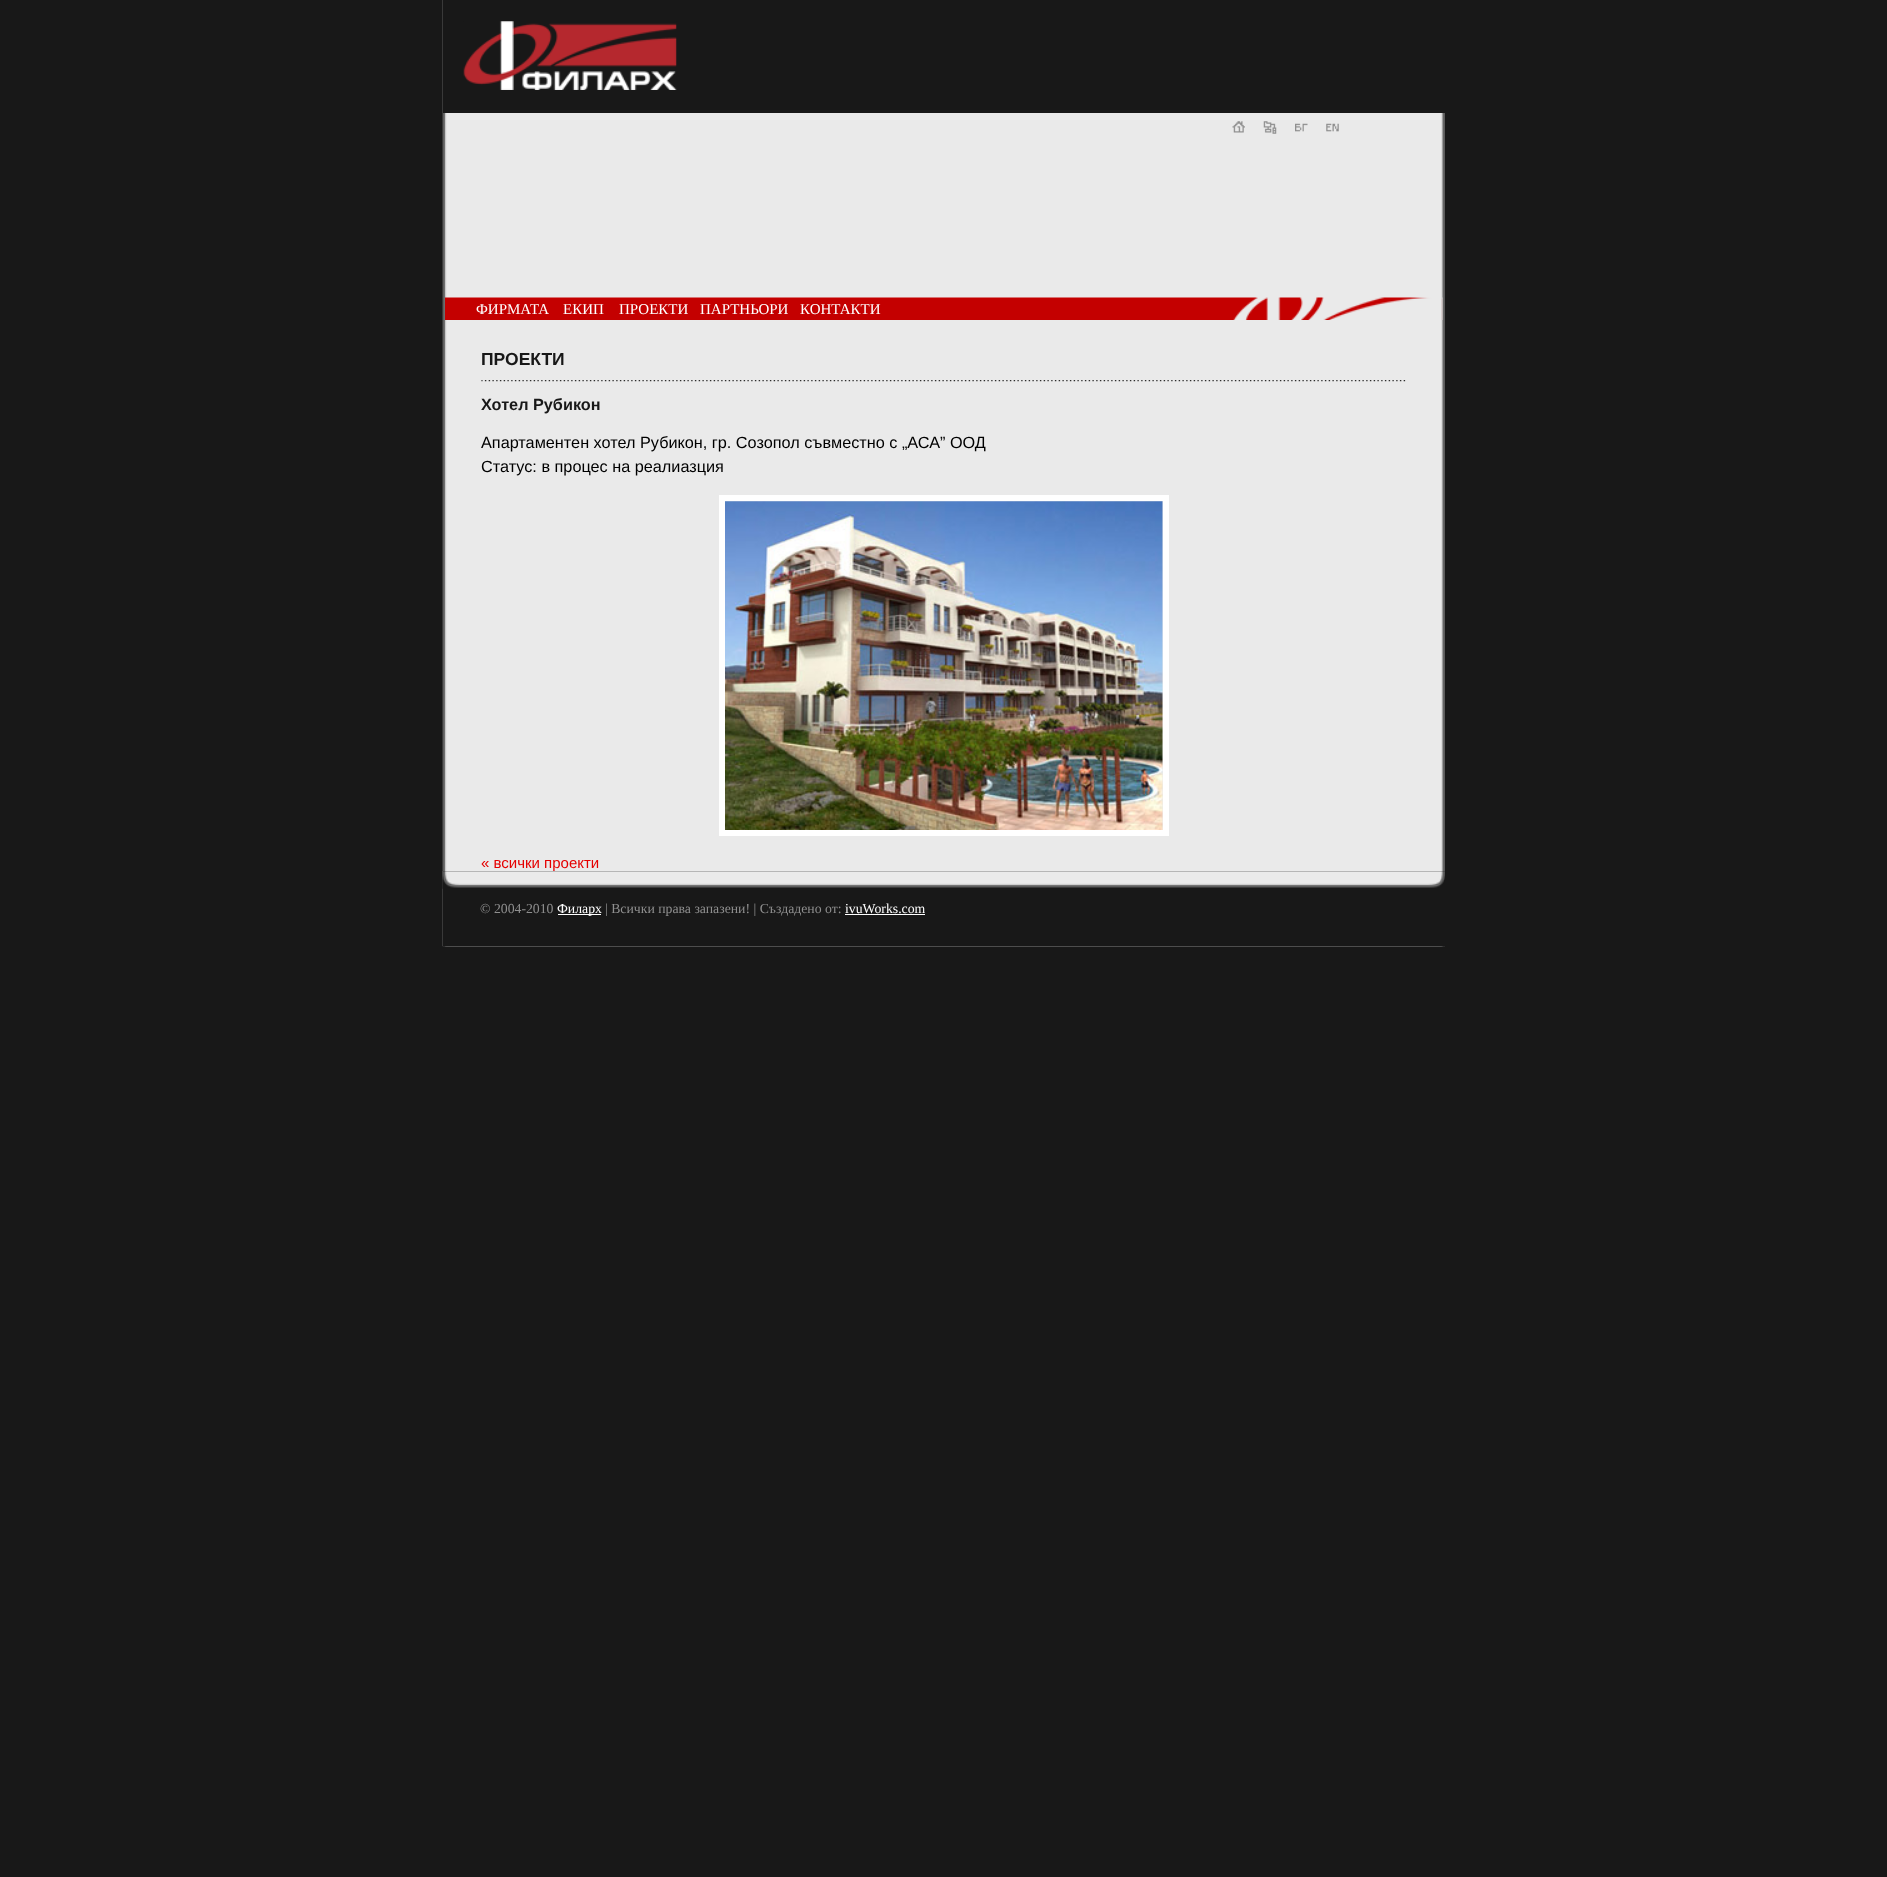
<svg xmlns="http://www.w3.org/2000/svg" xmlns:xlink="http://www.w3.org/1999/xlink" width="1887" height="1877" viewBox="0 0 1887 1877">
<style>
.cls-1{font:15px Liberation Serif;fill:#ffffff}
.cls-2{font:bold 17.5px Liberation Sans;fill:#181818}
.cls-3{font:bold 16.25px Liberation Sans;fill:#181818}
.cls-4{font:16.25px Liberation Sans;fill:#000000}
.cls-5{font:15px Liberation Sans;fill:#e50000}
.cls-6{font:13.75px Liberation Serif;fill:#8f8f8f}
.cls-7{font:13.75px Liberation Serif;fill:#ffffff}
</style>
<rect width="100%" height="100%" fill="#181818"/>
<image xlink:href="image0.png" x="442" y="0" width="1003" height="947"/>
<rect fill="#181818" x="443" y="0" width="1002" height="113"/>
<image xlink:href="image1.png" x="463" y="21" width="214" height="69"/>
<image xlink:href="image2.png" x="1232" y="121" width="13" height="12"/>
<image xlink:href="image3.png" x="1263" y="121" width="14" height="13"/>
<image xlink:href="image4.png" x="1295" y="123" width="13" height="9"/>
<image xlink:href="image5.png" x="1326" y="123" width="13" height="9"/>
<image xlink:href="image6.png" x="445" y="297" width="998" height="23"/>
<image xlink:href="image7.png" x="481" y="380" width="925" height="2"/>
<rect fill="none" stroke="#ffffff" stroke-width="6" x="722" y="498" width="444" height="335"/>
<image xlink:href="image8.png" x="725" y="501" width="438" height="329"/>
<rect fill="#181818" x="443" y="871" width="1002" height="75"/>
<image xlink:href="image9.png" x="442" y="871" width="1003" height="18"/>
<rect fill="#ffffff" x="558" y="914" width="43" height="1"/>
<rect fill="#ffffff" x="845" y="914" width="80" height="1"/>
<text class="cls-1" x="476" y="314">ФИРМАТА</text>
<text class="cls-1" x="563" y="314">ЕКИП</text>
<text class="cls-1" x="619" y="314">ПРОЕКТИ</text>
<text class="cls-1" x="700" y="314">ПАРТНЬОРИ</text>
<text class="cls-1" x="800" y="314">КОНТАКТИ</text>
<text class="cls-2" x="481" y="365">ПРОЕКТИ</text>
<text class="cls-3" x="481" y="410">Хотел Рубикон</text>
<text class="cls-4"><tspan x="481" y="448">Апартаментен хотел Рубикон, гр. Созопол съвместно с „АСА” ООД</tspan><tspan x="481" y="472">Статус: в процес на реалиазция</tspan></text>
<text class="cls-5" x="481" y="868">« всички проекти</text>
<text class="cls-6" x="480" y="913">© 2004-2010</text>
<text class="cls-7" x="557" y="913">Филарх</text>
<text class="cls-6" x="605" y="913">| Всички права запазени! | Създадено от:</text>
<text class="cls-7" x="845" y="913">ivuWorks.com</text>
</svg>
